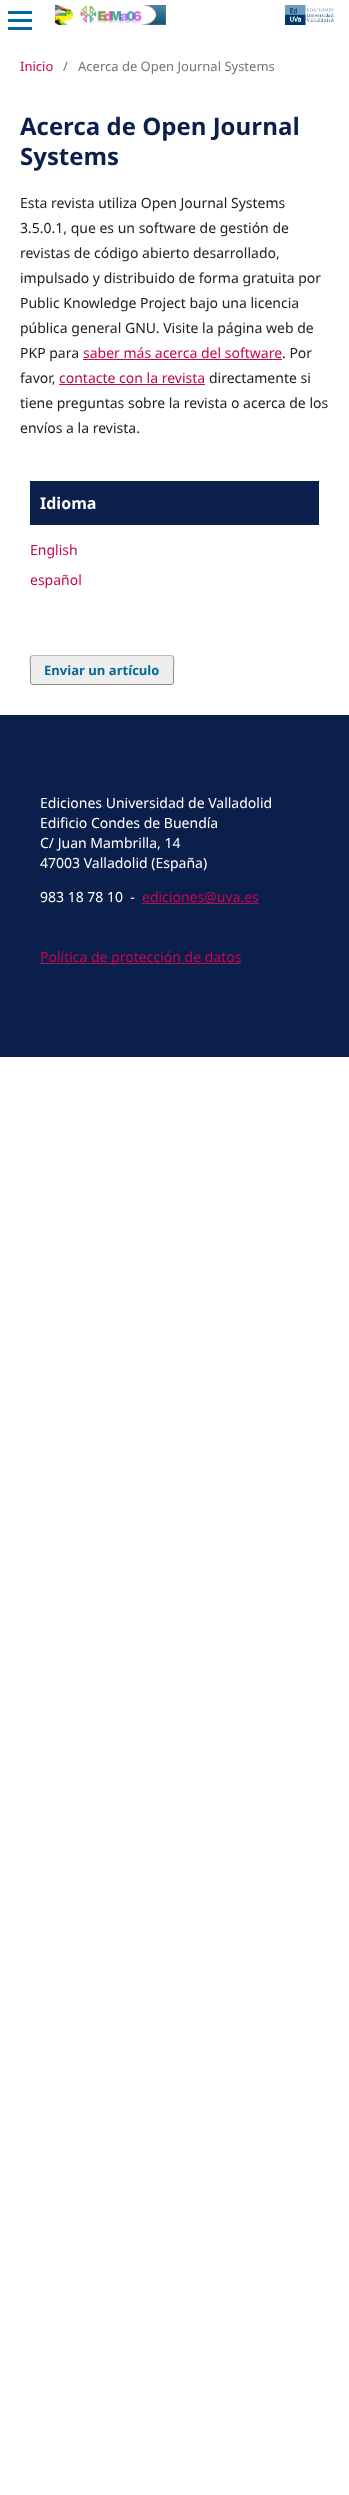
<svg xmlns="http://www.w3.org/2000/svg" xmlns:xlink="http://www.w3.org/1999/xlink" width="349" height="2495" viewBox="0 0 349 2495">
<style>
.cls-1{font:13px Noto Sans;fill:#c50653}
.cls-2{font:13px Noto Sans;fill:#757575}
.cls-3{font:bold 24px Noto Sans;fill:#0b1f4c}
.cls-4{font:14px Noto Sans;fill:#212121}
.cls-5{font:14px Noto Sans;fill:#c50653}
.cls-6{font:bold 16px Noto Sans;fill:#ffffff}
.cls-7{font:bold 13px Noto Sans;fill:#006798}
.cls-8{font:14px Noto Sans;fill:#ffffff}
</style>
<rect width="100%" height="100%" fill="#ffffff"/>
<rect fill="#006798" x="8" y="27" width="24" height="3"/>
<rect fill="#006798" x="8" y="11" width="24" height="3"/>
<rect fill="#006798" x="8" y="19" width="24" height="3"/>
<image xlink:href="image0.png" x="55" y="5" width="111" height="20"/>
<image xlink:href="image1.png" x="285" y="5" width="49" height="20"/>
<rect fill="#c50653" x="83" y="359" width="199" height="1"/>
<rect fill="#c50653" x="59" y="384" width="146" height="1"/>
<rect fill="#0b1f4c" x="30" y="481" width="289" height="44"/>
<rect fill="#eeeeee" x="30" y="655" width="144" height="30" rx="3"/>
<path fill="none" stroke="#bbbbbb" d="M31 656L33 655.5H171L173 656"/>
<path fill="none" stroke="#000000" stroke-opacity="0.4" d="M173 656C174.5 658 173.5 667.5 173.5 670V678C173.5 680 174.5 684.5 171 684.5H33C29.5 684.5 30.5 680 30.5 678V670C30.5 667.5 29.5 658 31 656"/>
<rect fill="#0b1f4c" x="0" y="715" width="349" height="342"/>
<rect fill="#c50653" x="142" y="903" width="117" height="1"/>
<rect fill="#c50653" x="40" y="963" width="201" height="1"/>
<text class="cls-1" x="20" y="71">Inicio</text>
<text class="cls-2" x="63" y="71">/</text>
<text class="cls-2" x="78" y="71">Acerca de Open Journal Systems</text>
<text class="cls-3"><tspan x="20" y="135">Acerca de Open Journal</tspan><tspan x="20" y="165">Systems</tspan></text>
<text class="cls-4"><tspan x="20" y="208">Esta revista utiliza Open Journal Systems</tspan><tspan x="20" y="233">3.5.0.1, que es un software de gestión de</tspan><tspan x="20" y="258">revistas de código abierto desarrollado,</tspan><tspan x="20" y="283">impulsado y distribuido de forma gratuita por</tspan><tspan x="20" y="308">Public Knowledge Project bajo una licencia</tspan><tspan x="20" y="333">pública general GNU. Visite la página web de</tspan><tspan x="20" y="358">PKP para</tspan></text>
<text class="cls-5" x="83" y="358">saber más acerca del software</text>
<text class="cls-4" x="282" y="358">. Por</text>
<text class="cls-4" x="20" y="383">favor,</text>
<text class="cls-5" x="59" y="383">contacte con la revista</text>
<text class="cls-4" x="209" y="383">directamente si</text>
<text class="cls-4"><tspan x="20" y="408">tiene preguntas sobre la revista o acerca de los</tspan><tspan x="20" y="433">envíos a la revista.</tspan></text>
<text class="cls-6" x="40" y="509">Idioma</text>
<text class="cls-5" x="30" y="555">English</text>
<text class="cls-5" x="30" y="585">español</text>
<text class="cls-7" x="44" y="675">Enviar un artículo</text>
<text class="cls-8"><tspan x="40" y="808">Ediciones Universidad de Valladolid</tspan><tspan x="40" y="828">Edificio Condes de Buendía</tspan><tspan x="40" y="848">C/ Juan Mambrilla, 14</tspan><tspan x="40" y="868">47003 Valladolid (España)</tspan></text>
<text class="cls-8" xml:space="preserve" x="40" y="902">983 18 78 10  -</text>
<text class="cls-5" x="142" y="902">ediciones@uva.es</text>
<text class="cls-5" x="40" y="962">Política de protección de datos</text>
</svg>
